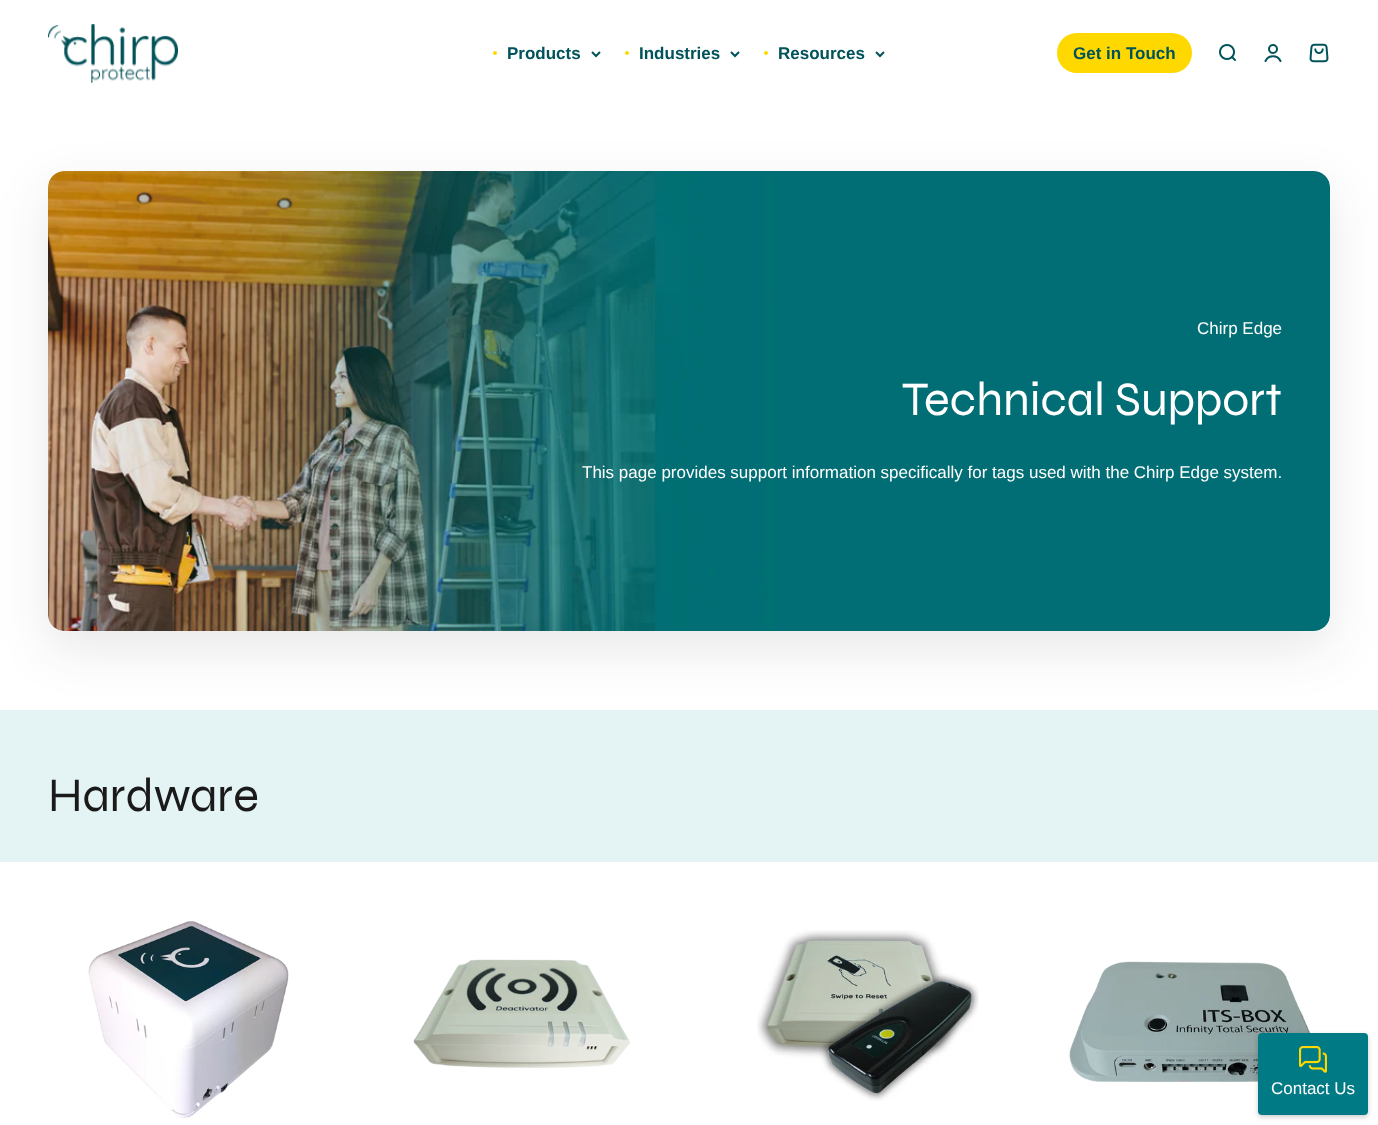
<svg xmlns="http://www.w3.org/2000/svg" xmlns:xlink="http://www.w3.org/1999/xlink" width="1378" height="1125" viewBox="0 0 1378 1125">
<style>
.cls-1{font:bold 17px Arimo;fill:#00535a}
.cls-2{font:17px Arimo;fill:#ffffff}
.cls-3{font:48px Syne;fill:#ffffff}
.cls-4{font:48px Syne;fill:#1a1a1a}
</style>
<rect width="100%" height="100%" fill="#ffffff"/>
<image xlink:href="image0.png" x="48" y="24" width="130" height="59"/>
<circle fill="#ffd800" cx="495" cy="53" r="2"/>
<path fill="none" stroke="#00535a" stroke-width="2" d="M592 52L596 56L600 52"/>
<circle fill="#ffd800" cx="627" cy="53" r="2"/>
<path fill="none" stroke="#00535a" stroke-width="2" d="M731 52L735 56L739 52"/>
<circle fill="#ffd800" cx="766" cy="53" r="2"/>
<path fill="none" stroke="#00535a" stroke-width="2" d="M876 52L880 56L884 52"/>
<rect fill="#ffd800" x="1057" y="33" width="135" height="40" rx="20"/>
<image xlink:href="image1.png" x="1219" y="44" width="17" height="17"/>
<circle fill="none" stroke="#00535a" stroke-width="2" cx="1273" cy="49" r="4"/>
<path fill="none" stroke="#00535a" stroke-width="2" stroke-linecap="round" d="M1265.5 61C1268.5 54.5 1277.5 54.5 1280.5 61"/>
<image xlink:href="image2.png" x="1309" y="43" width="20" height="20"/>
<rect fill="#1a1a1a" fill-opacity="0.1" filter="blur(25px)" x="48" y="189" width="1282" height="460" rx="16"/>
<image xlink:href="image3.png" x="48" y="171" width="1282" height="460"/>
<rect fill="#e4f3f4" x="0" y="710" width="1378" height="152"/>
<image xlink:href="image4.png" x="88" y="921" width="201" height="198"/>
<image xlink:href="image5.png" x="413" y="959" width="217" height="109"/>
<image xlink:href="image6.png" x="757" y="930" width="222" height="171"/>
<image xlink:href="image7.png" x="1069" y="961" width="242" height="121"/>
<rect fill="#000000" fill-opacity="0.2" filter="blur(2.5px)" x="1258" y="1035" width="110" height="82" rx="4"/>
<rect fill="#007b85" x="1258" y="1033" width="110" height="82" rx="4"/>
<image xlink:href="image8.png" x="1299" y="1046" width="28" height="27"/>
<text class="cls-1" x="507" y="59">Products</text>
<text class="cls-1" x="639" y="59">Industries</text>
<text class="cls-1" x="778" y="59">Resources</text>
<text class="cls-1" x="1073" y="59">Get in Touch</text>
<text class="cls-2" x="1197" y="334">Chirp Edge</text>
<text class="cls-3" x="902" y="415">Technical Support</text>
<text class="cls-2" x="582" y="478">This page provides support information specifically for tags used with the Chirp Edge system.</text>
<text class="cls-4" x="48" y="811">Hardware</text>
<text class="cls-2" x="1271" y="1094">Contact Us</text>
</svg>
